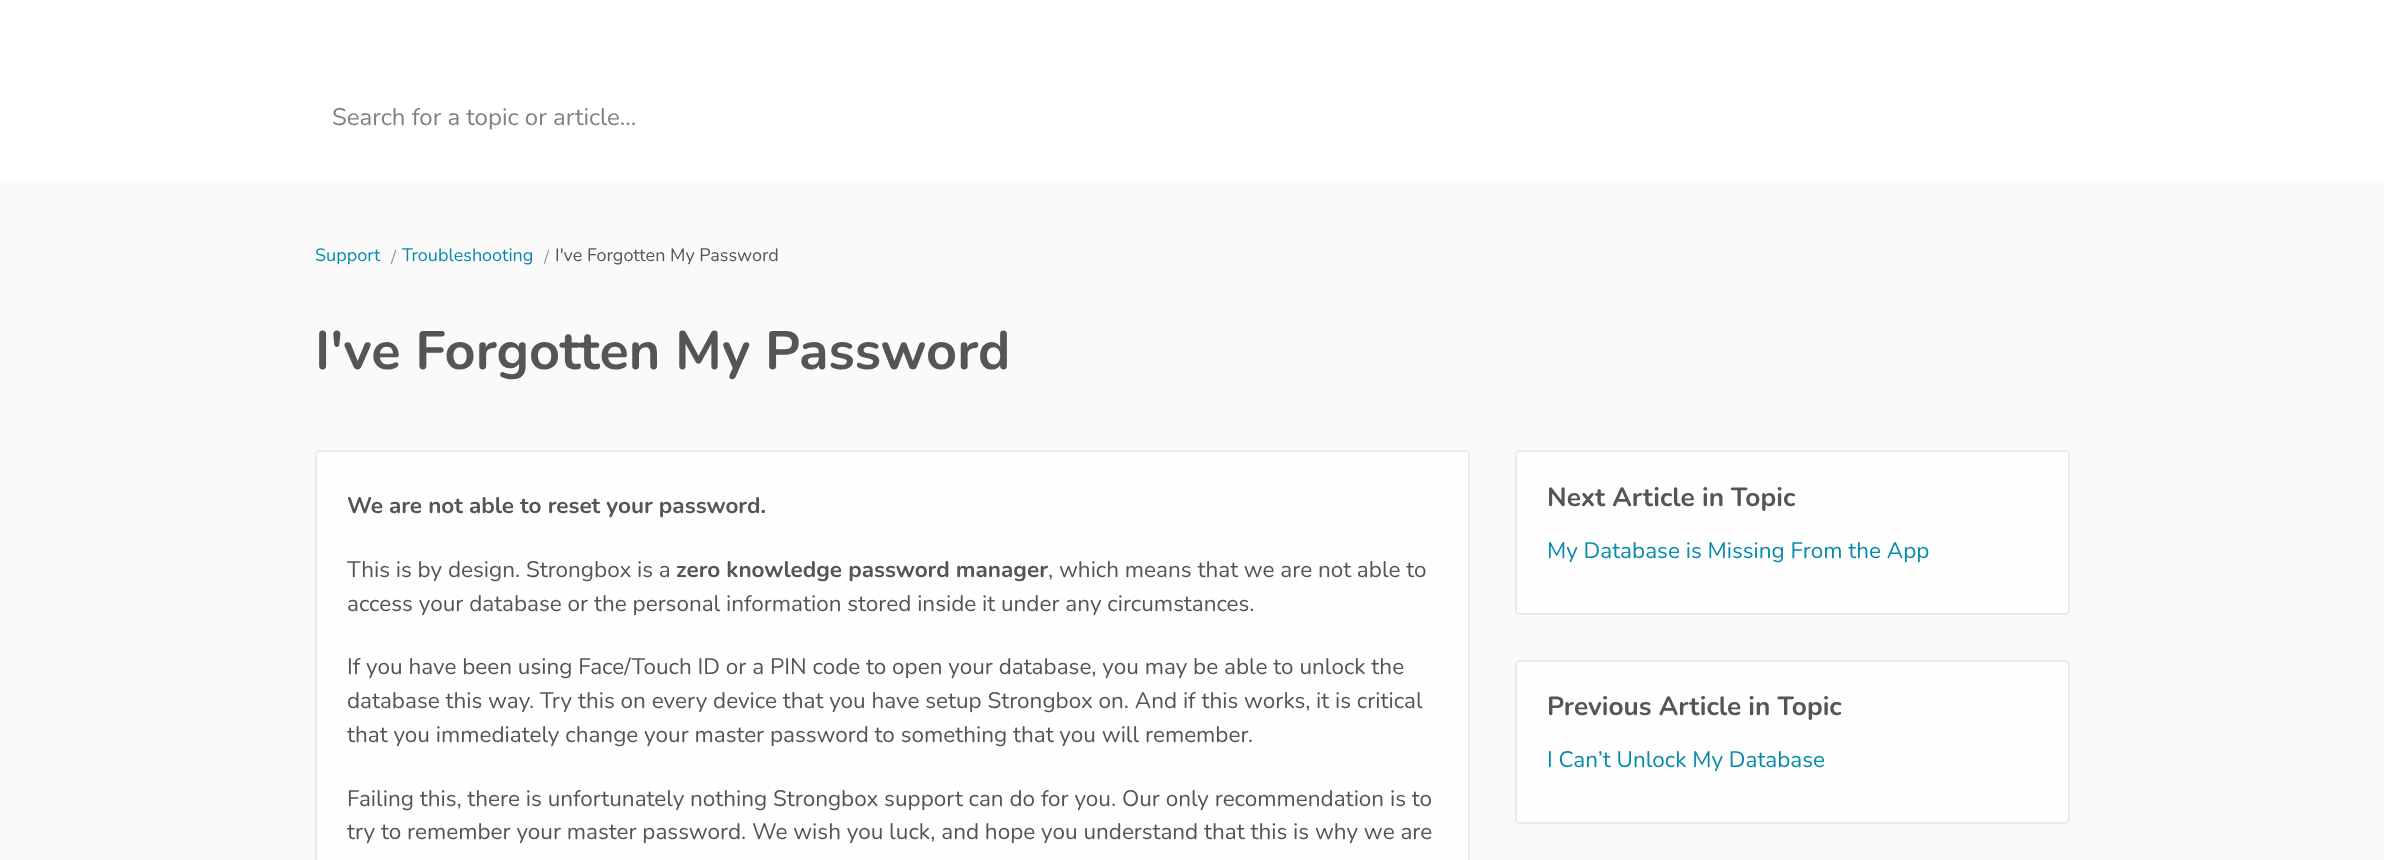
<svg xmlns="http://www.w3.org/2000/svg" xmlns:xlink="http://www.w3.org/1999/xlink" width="2384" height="860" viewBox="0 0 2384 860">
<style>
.cls-1{font:24px Nunito;fill:#808080}
.cls-2{font:18px Nunito;fill:#088aab}
.cls-3{font:18px Nunito;fill:#999999}
.cls-4{font:18px Nunito;fill:#555555}
.cls-5{font:bold 54px Nunito;fill:#555555}
.cls-6{font:bold 22.5px Nunito;fill:#555555}
.cls-7{font:22.5px Nunito;fill:#555555}
.cls-8{font:bold 26.25px Nunito;fill:#555555}
.cls-9{font:22.5px Nunito;fill:#088aab}
</style>
<rect width="100%" height="100%" fill="#fafafa"/>
<rect fill="#ffffff" x="0" y="0" width="2384" height="180"/>
<rect fill="#fefefe" stroke="#eaeaea" stroke-width="2" x="316" y="451" width="1153" height="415" rx="4"/>
<rect fill="#fefefe" stroke="#eaeaea" stroke-width="2" x="1516" y="451" width="553" height="163" rx="4"/>
<rect fill="#ffffff" fill-opacity="0.8" x="1515" y="660" width="555" height="164" rx="5"/>
<rect fill="none" stroke="#000000" stroke-opacity="0.08" stroke-width="2" x="1516" y="661" width="553" height="162" rx="4"/>
<text class="cls-1" x="332" y="125">Search for a topic or article...</text>
<text class="cls-2" x="315" y="261">Support</text>
<text class="cls-3" x="391" y="263">/</text>
<text class="cls-2" x="402" y="261">Troubleshooting</text>
<text class="cls-3" x="544" y="263">/</text>
<text class="cls-4" x="555" y="261">I've Forgotten My Password</text>
<text class="cls-5" x="315" y="369">I've Forgotten My Password</text>
<text class="cls-6" x="347" y="513">We are not able to reset your password.</text>
<text class="cls-7" x="347" y="577">This is by design. Strongbox is a</text>
<text class="cls-6" x="676" y="577">zero knowledge password manager</text>
<text class="cls-7" x="1048" y="577">, which means that we are not able to</text>
<text class="cls-7" x="347" y="611">access your database or the personal information stored inside it under any circumstances.</text>
<text class="cls-7"><tspan x="347" y="674">If you have been using Face/Touch ID or a PIN code to open your database, you may be able to unlock the</tspan><tspan x="347" y="708">database this way. Try this on every device that you have setup Strongbox on. And if this works, it is critical</tspan><tspan x="347" y="742">that you immediately change your master password to something that you will remember.</tspan></text>
<text class="cls-7"><tspan x="347" y="806">Failing this, there is unfortunately nothing Strongbox support can do for you. Our only recommendation is to</tspan><tspan x="347" y="839">try to remember your master password. We wish you luck, and hope you understand that this is why we are</tspan></text>
<text class="cls-8" x="1547" y="506">Next Article in Topic</text>
<text class="cls-9" x="1547" y="558">My Database is Missing From the App</text>
<text class="cls-8" x="1547" y="715">Previous Article in Topic</text>
<text class="cls-9" x="1547" y="767">I Can’t Unlock My Database</text>
</svg>
